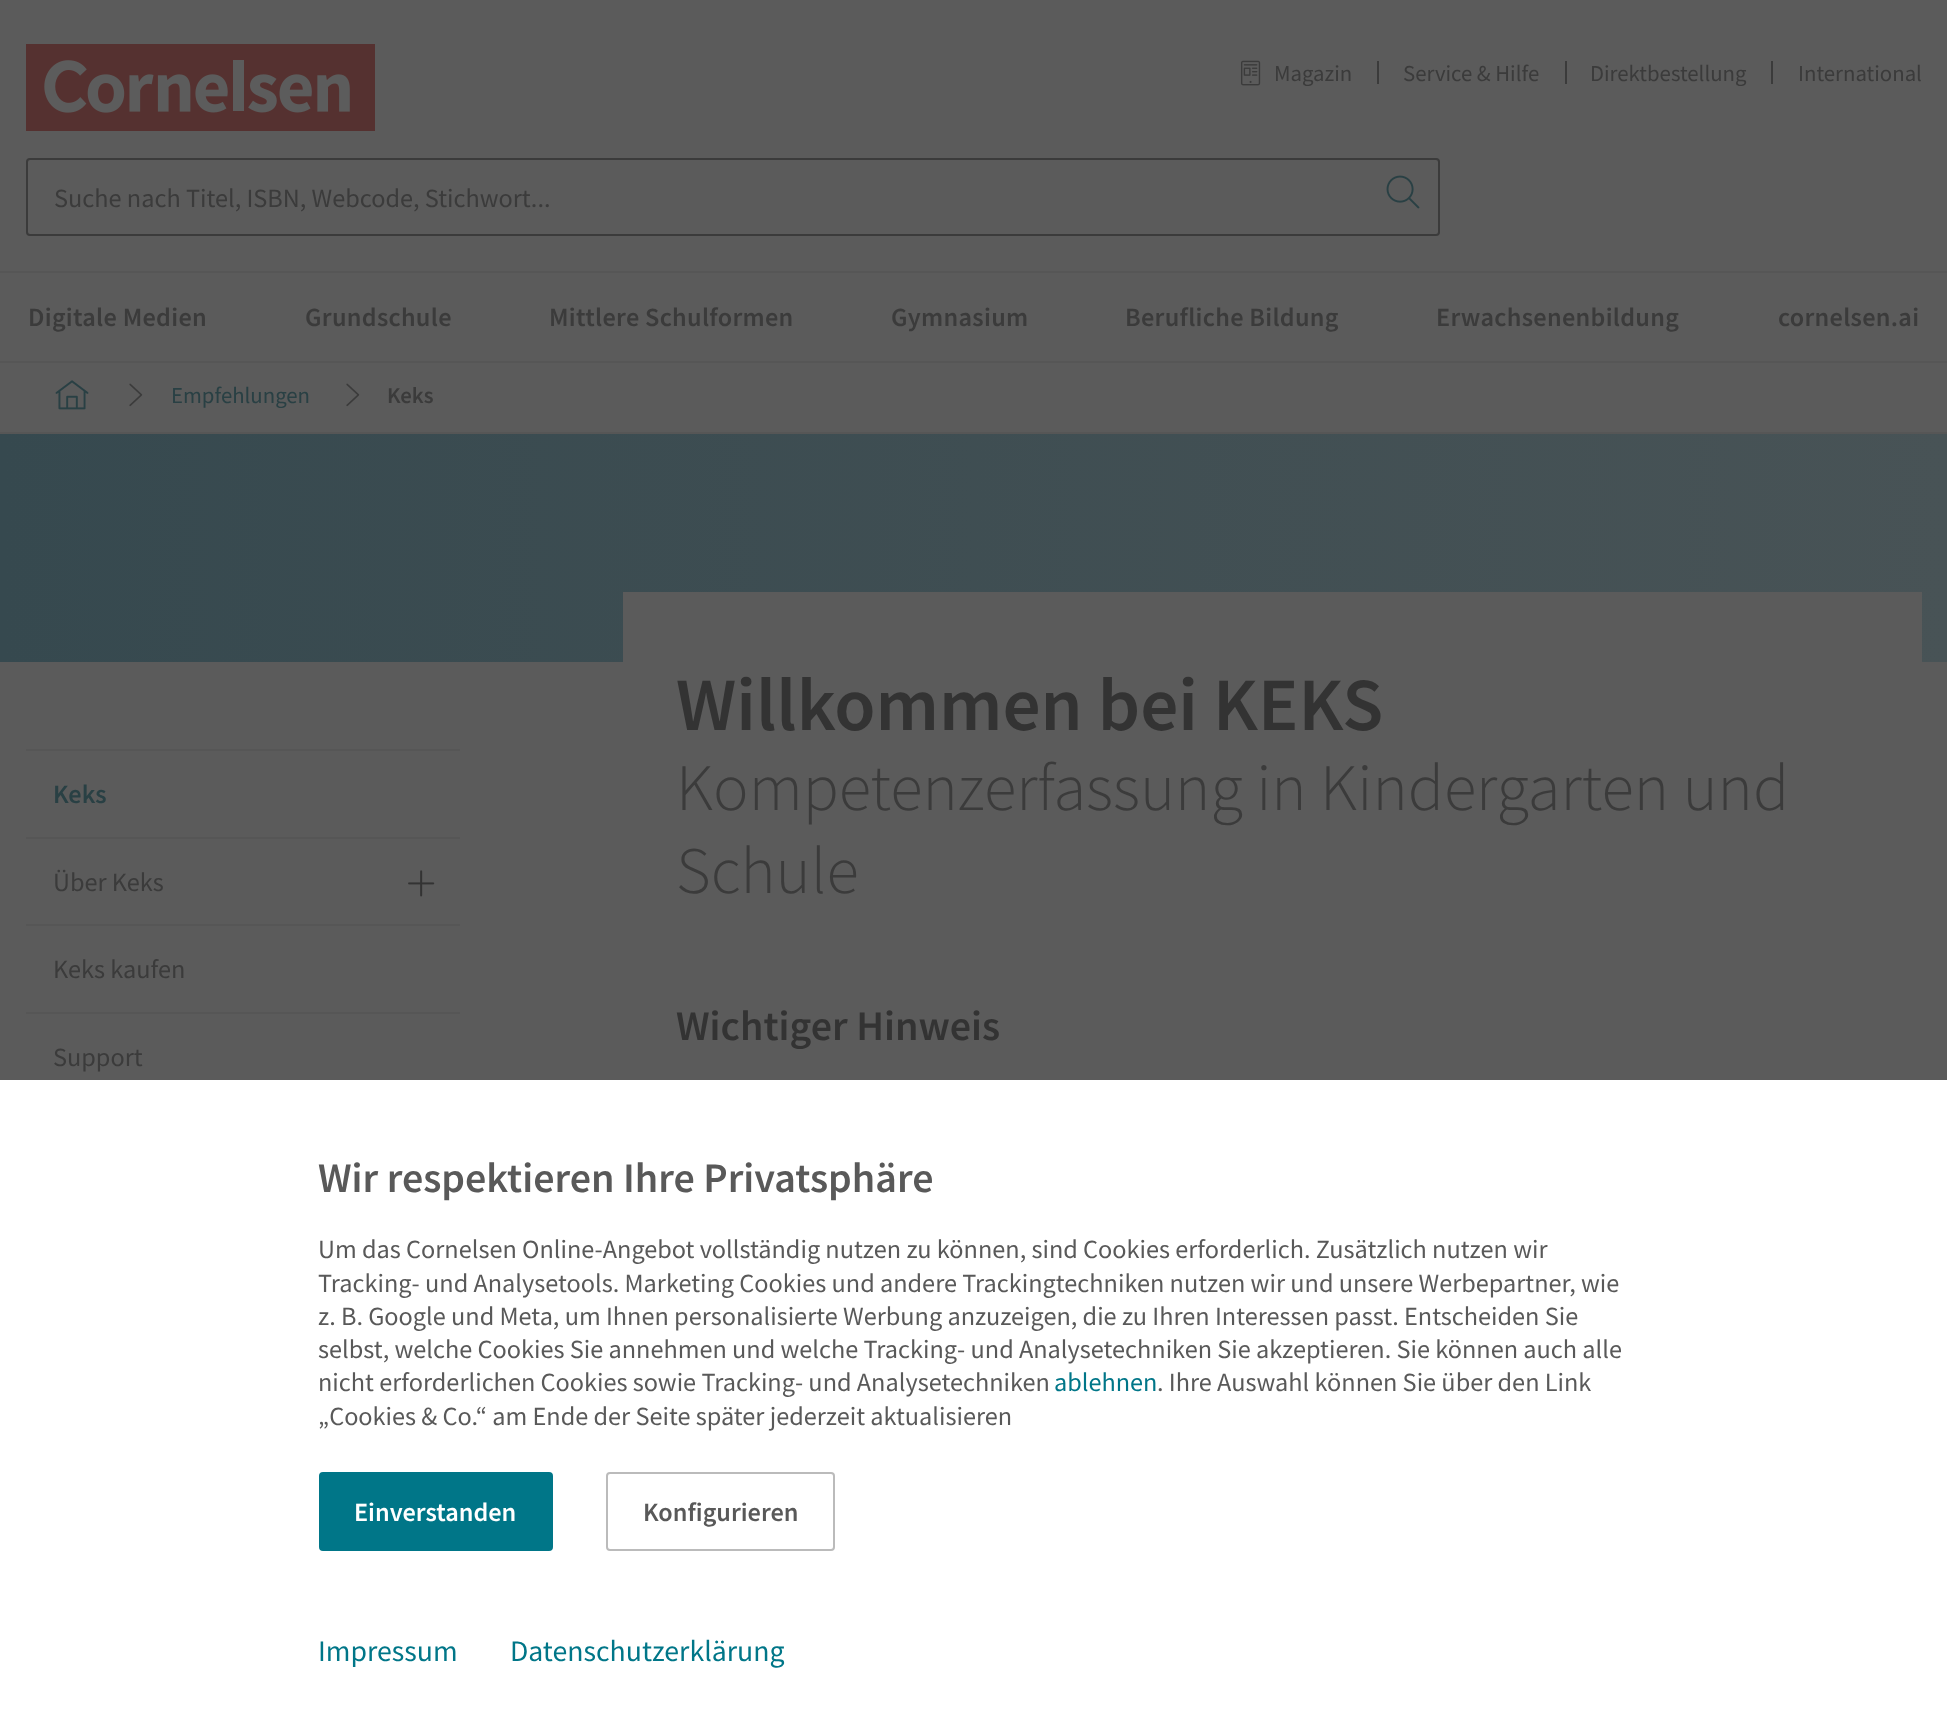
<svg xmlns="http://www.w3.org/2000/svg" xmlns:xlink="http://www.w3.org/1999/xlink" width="1947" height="1723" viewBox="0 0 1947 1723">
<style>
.cls-1{font:22.75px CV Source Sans;fill:#3b3b3b}
.cls-2{font:26.25px CV Source Sans;fill:#3b3b3b}
.cls-3{font:600 26.25px CV Source Sans;letter-spacing:0.3px;fill:#3b3b3b}
.cls-4{font:22.75px CV Source Sans;fill:#294044}
.cls-5{font:600 22.75px CV Source Sans;fill:#3b3b3b}
.cls-6{font:600 26.25px CV Source Sans;fill:#294044}
.cls-7{font:600 75.25px CV Source Sans;fill:#333333}
.cls-8{font:300 66.5px CV Source Sans;fill:#3b3b3b}
.cls-9{font:600 42px CV Source Sans;fill:#333333}
.cls-10{font:600 42px CV Source Sans;fill:#595959}
.cls-11{font:26.25px CV Source Sans;fill:#595959}
.cls-12{font:26.25px CV Source Sans;fill:#007688}
.cls-13{font:600 26.25px CV Source Sans;fill:#ffffff}
.cls-14{font:600 26.25px CV Source Sans;fill:#595959}
.cls-15{font:29.75px CV Source Sans;fill:#007688}
</style>
<defs>
<linearGradient id="g1" gradientUnits="userSpaceOnUse" x1="0" y1="548" x2="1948" y2="548"><stop offset="0" stop-color="#36494f"/><stop offset="1" stop-color="#485356"/></linearGradient>
</defs>
<rect width="100%" height="100%" fill="#5b5b5b"/>
<image xlink:href="image0.png" x="26" y="44" width="349" height="87"/>
<image xlink:href="image1.png" x="1240" y="60" width="21" height="26"/>
<rect fill="#3b3b3b" x="1377" y="61" width="2" height="23"/>
<rect fill="#3b3b3b" x="1565" y="61" width="2" height="23"/>
<rect fill="#3b3b3b" x="1771" y="61" width="2" height="23"/>
<rect fill="none" stroke="#3b3b3b" stroke-width="2" x="27" y="159" width="1412" height="76" rx="3"/>
<image xlink:href="image2.png" x="1386" y="175" width="34" height="34"/>
<rect fill="#565656" x="0" y="271" width="1947" height="2"/>
<rect fill="#565656" x="0" y="361" width="1947" height="2"/>
<rect fill="#565656" x="0" y="432" width="1947" height="2"/>
<image xlink:href="image3.png" x="55" y="380" width="34" height="30"/>
<image xlink:href="image4.png" x="129" y="383" width="14" height="24"/>
<image xlink:href="image4.png" x="346" y="383" width="14" height="24"/>
<rect fill="url(#g1)" x="0" y="434" width="1947" height="228"/>
<rect fill="#565656" x="26" y="749" width="434" height="2"/>
<rect fill="#565656" x="26" y="837" width="434" height="2"/>
<rect fill="#565656" x="26" y="924" width="434" height="2"/>
<image xlink:href="image5.png" x="408" y="870" width="27" height="27"/>
<rect fill="#565656" x="26" y="1012" width="434" height="2"/>
<rect fill="#5b5b5b" x="623" y="592" width="1299" height="70"/>
<rect fill="#ffffff" x="0" y="1080" width="1947" height="643"/>
<rect fill="#007688" stroke="#007688" stroke-width="2" x="320" y="1473" width="232" height="77" rx="3"/>
<rect fill="none" stroke="#bbbbbb" stroke-width="2" x="607" y="1473" width="227" height="77" rx="3"/>
<text class="cls-1" x="1274" y="81">Magazin</text>
<text class="cls-1" x="1403" y="81">Service &amp; Hilfe</text>
<text class="cls-1" x="1590" y="81">Direktbestellung</text>
<text class="cls-1" x="1798" y="81">International</text>
<text class="cls-2" x="54" y="207">Suche nach Titel, ISBN, Webcode, Stichwort...</text>
<text class="cls-3" x="28" y="326">Digitale Medien</text>
<text class="cls-3" x="305" y="326">Grundschule</text>
<text class="cls-3" x="549" y="326">Mittlere Schulformen</text>
<text class="cls-3" x="891" y="326">Gymnasium</text>
<text class="cls-3" x="1125" y="326">Berufliche Bildung</text>
<text class="cls-3" x="1436" y="326">Erwachsenenbildung</text>
<text class="cls-3" x="1778" y="326">cornelsen.ai</text>
<text class="cls-4" x="171" y="403">Empfehlungen</text>
<text class="cls-5" x="387" y="403">Keks</text>
<text class="cls-6" x="53" y="803">Keks</text>
<text class="cls-2" x="53" y="891">Über Keks</text>
<text class="cls-2" x="53" y="978">Keks kaufen</text>
<text class="cls-2" x="53" y="1066">Support</text>
<text class="cls-7" x="676" y="730">Willkommen bei KEKS</text>
<text class="cls-8"><tspan x="676" y="810">Kompetenzerfassung in Kindergarten und</tspan><tspan x="676" y="893">Schule</tspan></text>
<text class="cls-9" x="676" y="1040">Wichtiger Hinweis</text>
<text class="cls-10" x="318" y="1192">Wir respektieren Ihre Privatsphäre</text>
<text class="cls-11"><tspan x="318" y="1258">Um das Cornelsen Online-Angebot vollständig nutzen zu können, sind Cookies erforderlich. Zusätzlich nutzen wir</tspan><tspan x="318" y="1292">Tracking- und Analysetools. Marketing Cookies und andere Trackingtechniken nutzen wir und unsere Werbepartner, wie</tspan><tspan x="318" y="1325">z. B. Google und Meta, um Ihnen personalisierte Werbung anzuzeigen, die zu Ihren Interessen passt. Entscheiden Sie</tspan><tspan x="318" y="1358">selbst, welche Cookies Sie annehmen und welche Tracking- und Analysetechniken Sie akzeptieren. Sie können auch alle</tspan><tspan x="318" y="1391">nicht erforderlichen Cookies sowie Tracking- und Analysetechniken</tspan></text>
<text class="cls-12" x="1054" y="1391">ablehnen</text>
<text class="cls-11" x="1157" y="1391">. Ihre Auswahl können Sie über den Link</text>
<text class="cls-11" x="318" y="1425">„Cookies &amp; Co.“ am Ende der Seite später jederzeit aktualisieren</text>
<text class="cls-13" x="354" y="1521">Einverstanden</text>
<text class="cls-14" x="643" y="1521">Konfigurieren</text>
<text class="cls-15" x="318" y="1661">Impressum</text>
<text class="cls-15" x="510" y="1661">Datenschutzerklärung</text>
</svg>
